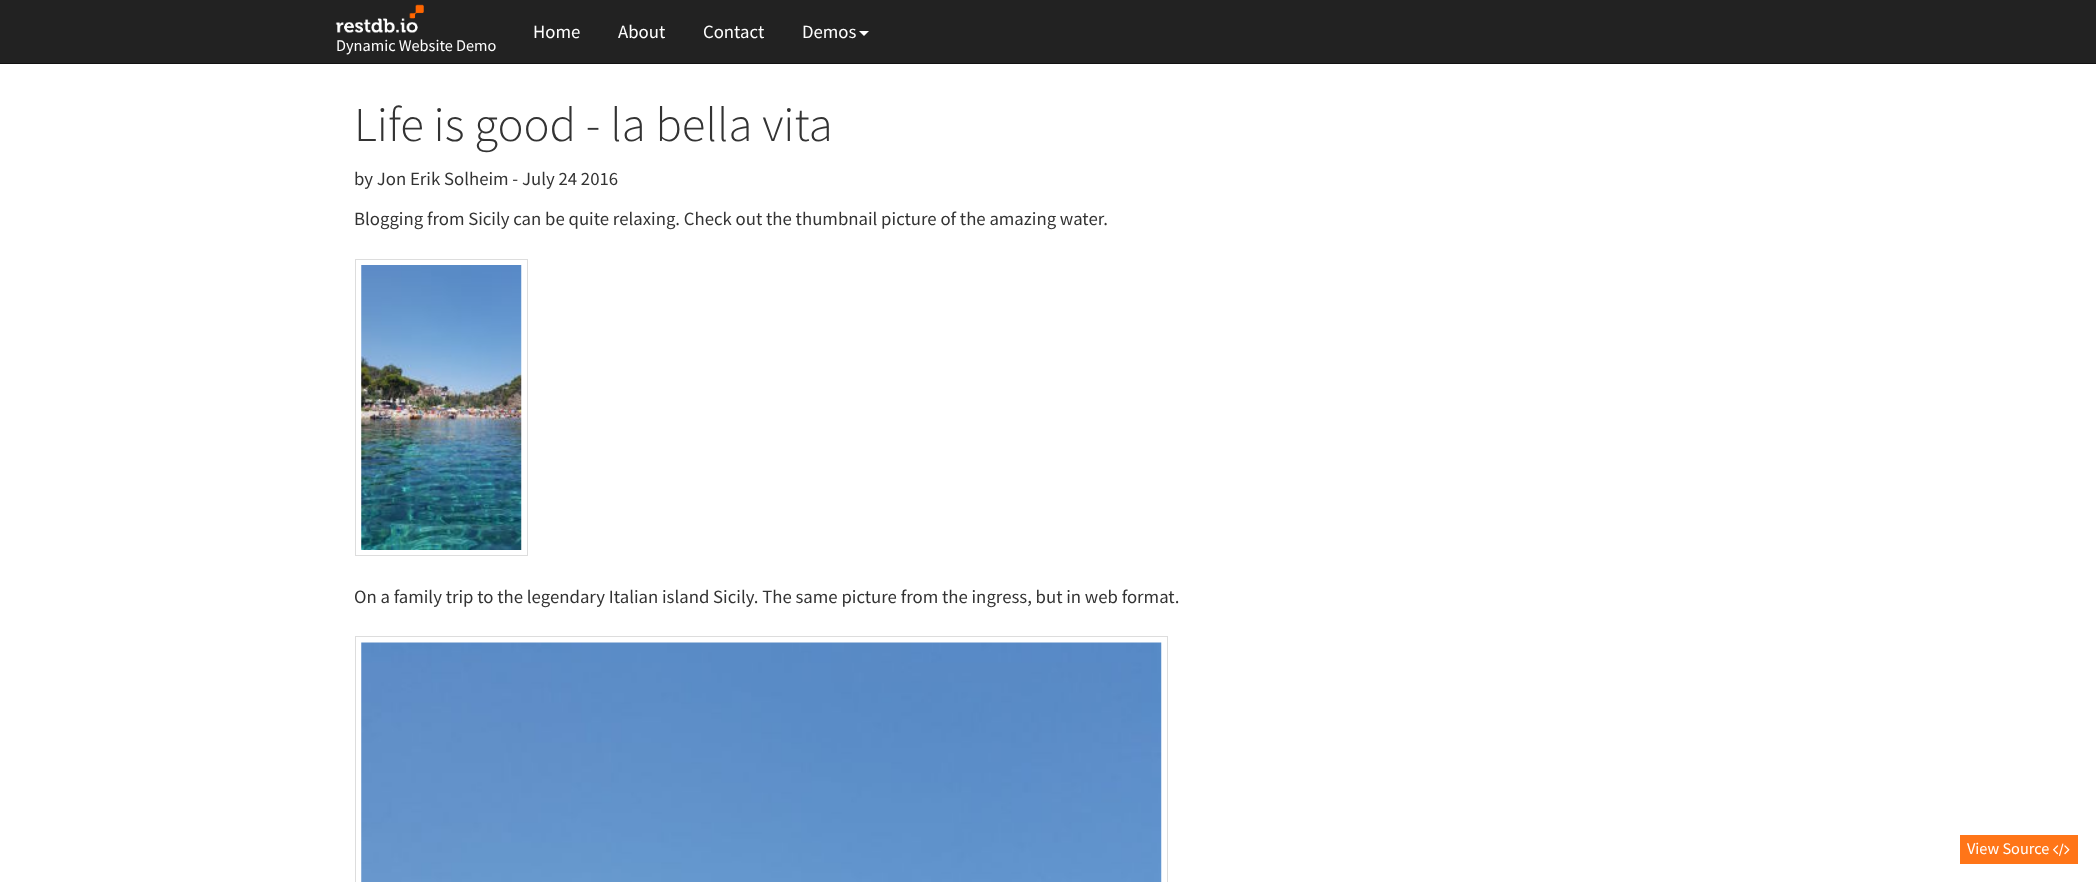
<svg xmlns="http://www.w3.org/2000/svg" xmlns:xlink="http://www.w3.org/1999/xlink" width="2096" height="882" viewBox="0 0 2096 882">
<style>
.cls-1{font:18.75px Source Sans Pro;fill:#ffffff}
.cls-2{font:16.25px Source Sans Pro;fill:#ffffff}
.cls-3{font:300 48.75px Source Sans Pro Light;fill:#333333}
.cls-4{font:18.75px Source Sans Pro;fill:#333333}
</style>
<rect width="100%" height="100%" fill="#ffffff"/>
<rect fill="#222222" x="0" y="0" width="2096" height="63"/>
<rect fill="#121212" x="0" y="63" width="2096" height="1"/>
<path fill="#ffffff" d="M859 31H869L864 36Z"/>
<image xlink:href="image0.png" x="335" y="4" width="89" height="29"/>
<rect fill="none" stroke="#dddddd" x="355.5" y="259.5" width="172" height="296"/>
<image xlink:href="image1.png" x="361" y="265" width="161" height="285"/>
<rect fill="none" stroke="#dddddd" x="355.5" y="636.5" width="812" height="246"/>
<image xlink:href="image2.png" x="361" y="642" width="801" height="240"/>
<rect fill="#ff7518" x="1960" y="835" width="118" height="29"/>
<image xlink:href="image3.png" x="2053" y="843" width="17" height="13"/>
<text class="cls-1" x="533" y="38">Home</text>
<text class="cls-1" x="618" y="38">About</text>
<text class="cls-1" x="703" y="38">Contact</text>
<text class="cls-1" x="802" y="38">Demos</text>
<text class="cls-2" x="336" y="51">Dynamic Website Demo</text>
<text class="cls-3" x="354" y="141">Life is good - la bella vita</text>
<text class="cls-4" x="354" y="185">by Jon Erik Solheim - July 24 2016</text>
<text class="cls-4" x="354" y="225">Blogging from Sicily can be quite relaxing. Check out the thumbnail picture of the amazing water.</text>
<text class="cls-4" x="354" y="603">On a family trip to the legendary Italian island Sicily. The same picture from the ingress, but in web format.</text>
<text class="cls-2" x="1967" y="854">View Source</text>
</svg>
